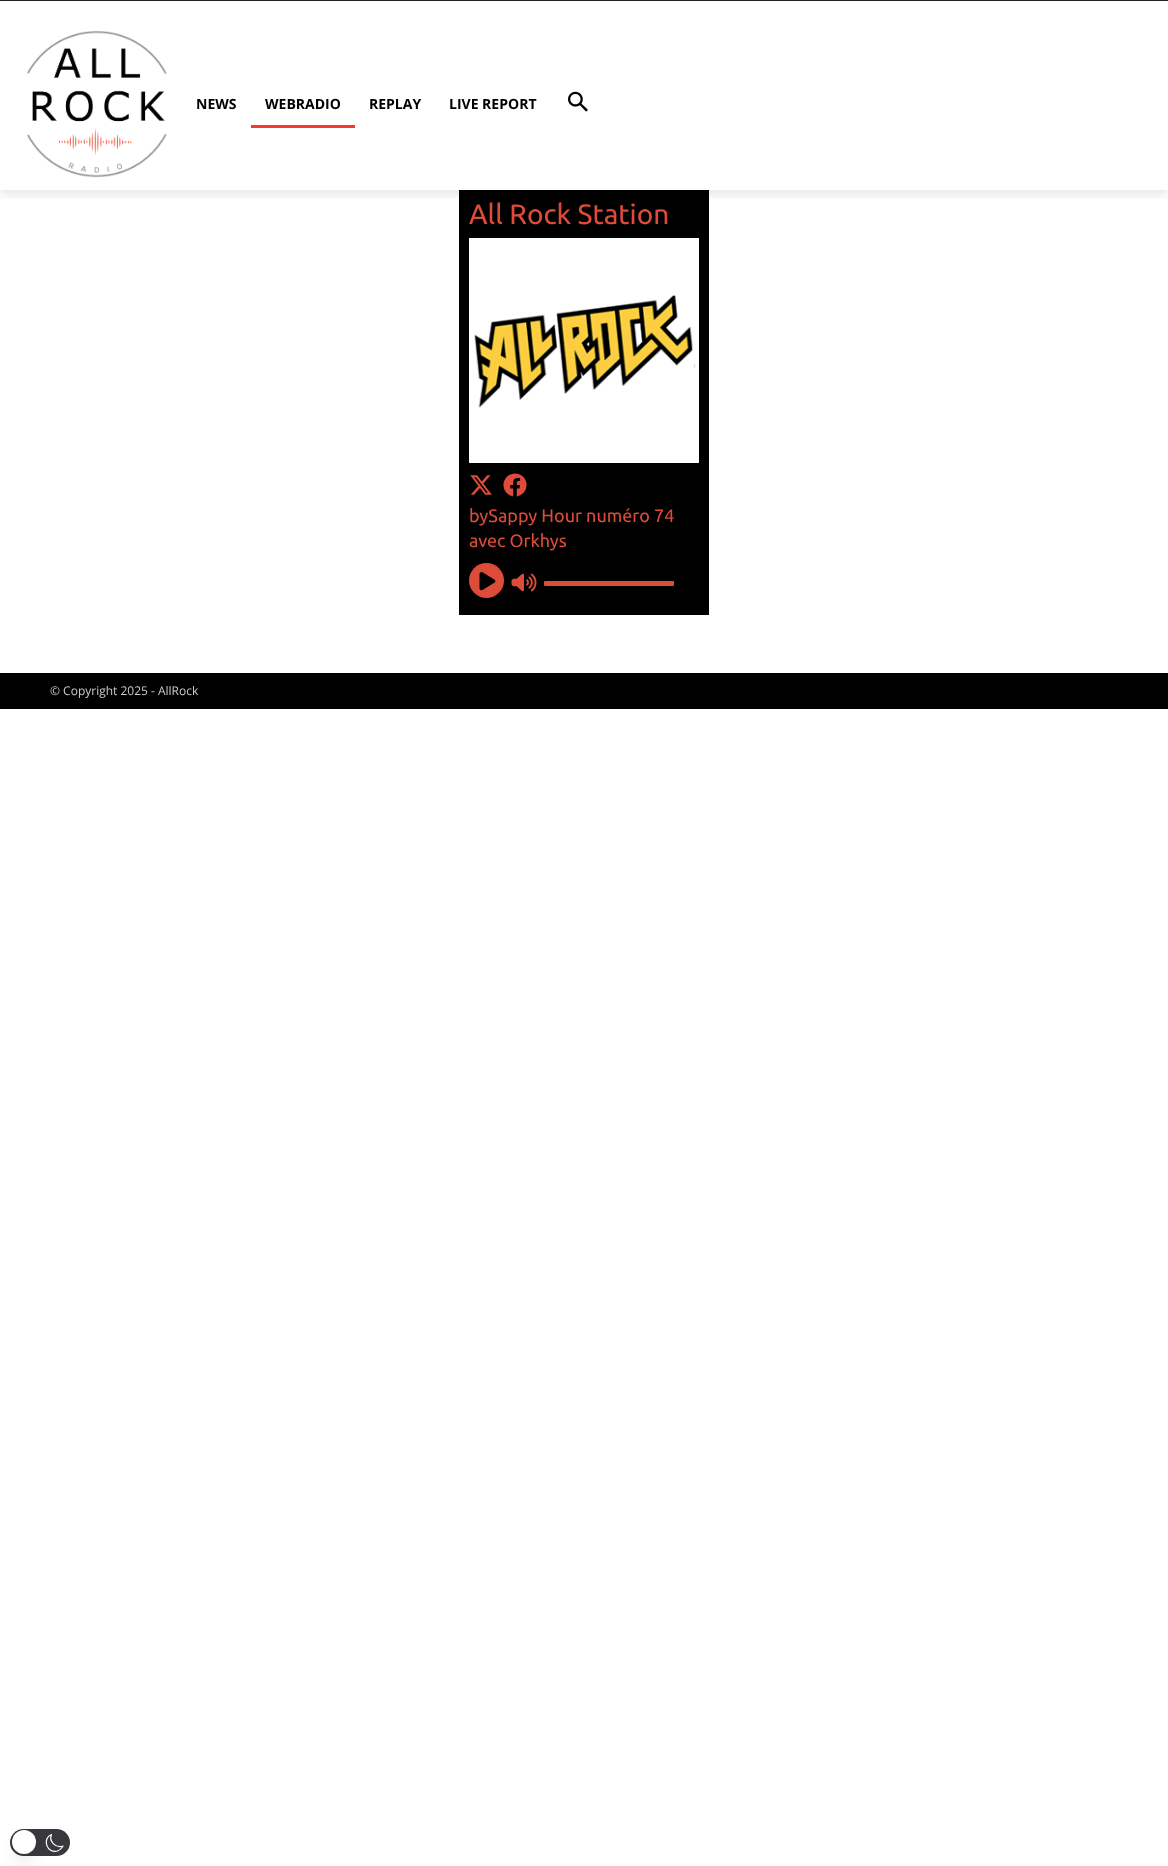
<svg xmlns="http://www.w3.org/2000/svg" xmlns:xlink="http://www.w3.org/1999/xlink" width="1168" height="1866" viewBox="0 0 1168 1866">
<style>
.cls-1{font:bold 14px Open Sans;fill:#000000}
.cls-2{font:12px Open Sans;fill:#cccccc}
</style>
<defs>
<clipPath id="clip1"><rect x="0" y="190" width="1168" height="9"/></clipPath>
</defs>
<rect width="100%" height="100%" fill="#ffffff"/>
<rect fill="#222222" x="0" y="0" width="1168" height="1"/>
<image xlink:href="image0.png" x="27" y="31" width="140" height="147"/>
<image xlink:href="image1.png" x="568" y="91" width="20" height="21"/>
<image xlink:href="image2.png" x="459" y="190" width="250" height="425"/>
<g clip-path="url(#clip1)">
<rect fill="#000000" fill-opacity="0.08" filter="blur(4px)" x="0" y="6" width="1168" height="190"/>
</g>
<rect fill="#ff3530" x="251" y="125" width="104" height="3"/>
<rect fill="#000000" x="0" y="673" width="1168" height="36"/>
<rect fill="#39393d" x="10" y="1829" width="60" height="27" rx="13.5"/>
<image xlink:href="image3.png" x="31" y="1850" width="1" height="1"/>
<path fill="none" stroke="#ffffff" stroke-width="1.2" stroke-linecap="round" stroke-linejoin="round" d="M63 1846C56 1848.5 48.5 1841.5 51.5 1834.5C41.5 1838.5 47 1854 57.5 1851C60 1850 62 1848 63 1846Z"/>
<rect fill="#000000" fill-opacity="0.1" filter="blur(7.5px)" x="15" y="1843" width="18" height="18" rx="9"/>
<circle fill="#ffffff" cx="24" cy="1842" r="12"/>
<text class="cls-1" x="196" y="109">NEWS</text>
<text class="cls-1" x="265" y="109">WEBRADIO</text>
<text class="cls-1" x="369" y="109">REPLAY</text>
<text class="cls-1" x="449" y="109">LIVE REPORT</text>
<text class="cls-2" x="50" y="695">© Copyright 2025 - AllRock</text>
</svg>
